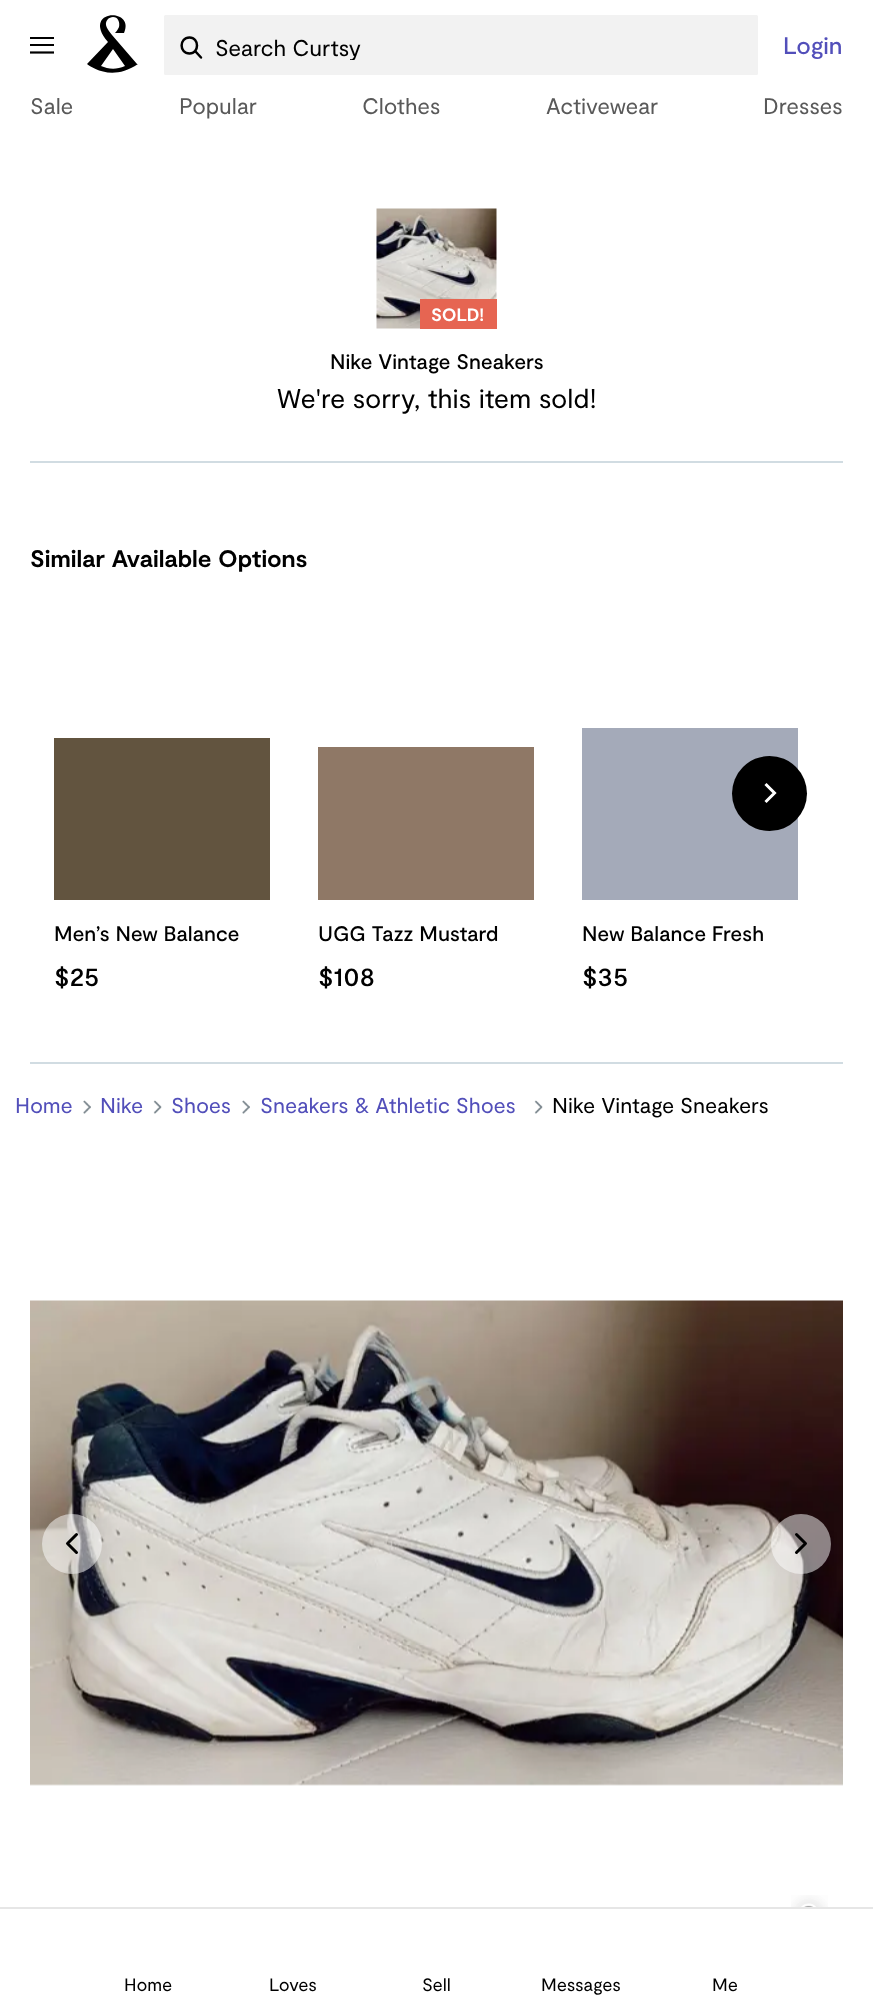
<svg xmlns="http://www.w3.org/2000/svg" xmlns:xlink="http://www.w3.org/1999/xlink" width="873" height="2003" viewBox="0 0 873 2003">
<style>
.cls-1{font:22.75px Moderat;fill:#000000}
.cls-2{font:500 24px Moderat;fill:#524fba}
.cls-3{font:22.5px Moderat;fill:#595959}
.cls-4{font:bold 18px Moderat;fill:#ffffff}
.cls-5{font:500 21px Moderat;fill:#000000}
.cls-6{font:27px Moderat;fill:#000000}
.cls-7{font:bold 24px Moderat;fill:#000000}
.cls-8{font:500 27px Moderat;fill:#000000}
.cls-9{font:21.6px Moderat;fill:#524fba}
.cls-10{font:21.6px Moderat;fill:#000000}
.cls-11{font:18px Moderat;fill:#000000}
</style>
<defs>
<clipPath id="clip1"><rect x="215" y="33" width="481" height="27"/></clipPath>
</defs>
<rect width="100%" height="100%" fill="#ffffff"/>
<rect fill="#000000" x="30" y="37" width="24" height="2"/>
<rect fill="#000000" x="30" y="44" width="24" height="2"/>
<path fill="none" stroke="#000000" stroke-width="2.2" d="M30 52.5H54"/>
<path fill="#000000" d="M137 64L112 35C108 30 103 24 108 19C109 18 111 17 113 17C118 17 120 22 119 27C118 29 117 31 115 33H124C136 7 80 9 108 42L87 64C91 67 112 82 138 64ZM101 66L113 49L125 66C116 70 108 69 101 66Z"/>
<rect fill="#f2f2f2" x="164" y="15" width="594" height="60" rx="1.5"/>
<path fill="none" stroke="#000000" stroke-width="2.5" d="M189.5 53.5C199.5 53.5 199.5 37.5 189.5 37.5C179 37.5 179 53.5 189.5 53.5Z"/>
<path fill="none" stroke="#000000" stroke-width="2.5" stroke-linecap="round" d="M195.5 51.5L201 57.5"/>
<rect fill="#d1dce2" x="30" y="461" width="813" height="2"/>
<image xlink:href="image0.png" x="376" y="208" width="121" height="121"/>
<rect fill="#e66552" x="420" y="299" width="77" height="30"/>
<rect fill="#d1dce2" x="30" y="1062" width="813" height="2"/>
<rect fill="#62543f" x="54" y="738" width="216" height="162"/>
<rect fill="#8f7866" x="318" y="747" width="216" height="153"/>
<rect fill="#a4aab9" x="582" y="728" width="216" height="172"/>
<circle fill="#000000" cx="769.5" cy="793.5" r="37.5"/>
<path fill="none" stroke="#ffffff" stroke-width="3" d="M765.5 784L774.5 793L765.5 802"/>
<image xlink:href="image1.png" x="83" y="1100" width="8" height="14"/>
<image xlink:href="image2.png" x="153" y="1100" width="9" height="14"/>
<image xlink:href="image1.png" x="242" y="1100" width="8" height="14"/>
<image xlink:href="image2.png" x="534" y="1100" width="9" height="14"/>
<image xlink:href="image3.png" x="30" y="1300" width="813" height="486"/>
<circle fill="#ffffff" fill-opacity="0.5" cx="72" cy="1544" r="30"/>
<path fill="none" stroke="#000000" stroke-width="3" stroke-linecap="round" stroke-linejoin="round" d="M76.5 1552.5L67.5 1543.5L76.5 1534.5"/>
<circle fill="#ffffff" fill-opacity="0.5" cx="801" cy="1544" r="30"/>
<path fill="none" stroke="#000000" stroke-width="3" stroke-linecap="round" stroke-linejoin="round" d="M796.5 1552.5L805.5 1543.5L796.5 1534.5"/>
<image xlink:href="image4.png" x="791" y="1895" width="37" height="12"/>
<rect fill="#e6e6e6" x="0" y="1907" width="873" height="2"/>
<g clip-path="url(#clip1)">
<text class="cls-1" x="215" y="56">Search Curtsy</text>
</g>
<text class="cls-2" x="783" y="54">Login</text>
<text class="cls-3" x="30" y="114">Sale</text>
<text class="cls-3" x="179" y="114">Popular</text>
<text class="cls-3" x="362" y="114">Clothes</text>
<text class="cls-3" x="546" y="114">Activewear</text>
<text class="cls-3" x="763" y="114">Dresses</text>
<text class="cls-4" x="431" y="321">SOLD!</text>
<text class="cls-5" x="330" y="369">Nike Vintage Sneakers</text>
<text class="cls-6" x="277" y="408">We're sorry, this item sold!</text>
<text class="cls-7" x="30" y="567">Similar Available Options</text>
<text class="cls-5" x="54" y="941">Men’s New Balance</text>
<text class="cls-8" x="54" y="986">$25</text>
<text class="cls-5" x="318" y="941">UGG Tazz Mustard</text>
<text class="cls-8" x="318" y="986">$</text>
<text class="cls-8" x="333" y="986">108</text>
<text class="cls-5" x="582" y="941">New Balance Fresh</text>
<text class="cls-8" x="582" y="986">$35</text>
<text class="cls-9" x="15" y="1113">Home</text>
<text class="cls-9" x="100" y="1113">Nike</text>
<text class="cls-9" x="171" y="1113">Shoes</text>
<text class="cls-9" x="260" y="1113">Sneakers &amp; Athletic Shoes</text>
<text class="cls-10" x="552" y="1113">Nike Vintage Sneakers</text>
<text class="cls-11" x="124" y="1991">Home</text>
<text class="cls-11" x="269" y="1991">Loves</text>
<text class="cls-11" x="422" y="1991">Sell</text>
<text class="cls-11" x="541" y="1991">Messages</text>
<text class="cls-11" x="712" y="1991">Me</text>
</svg>
